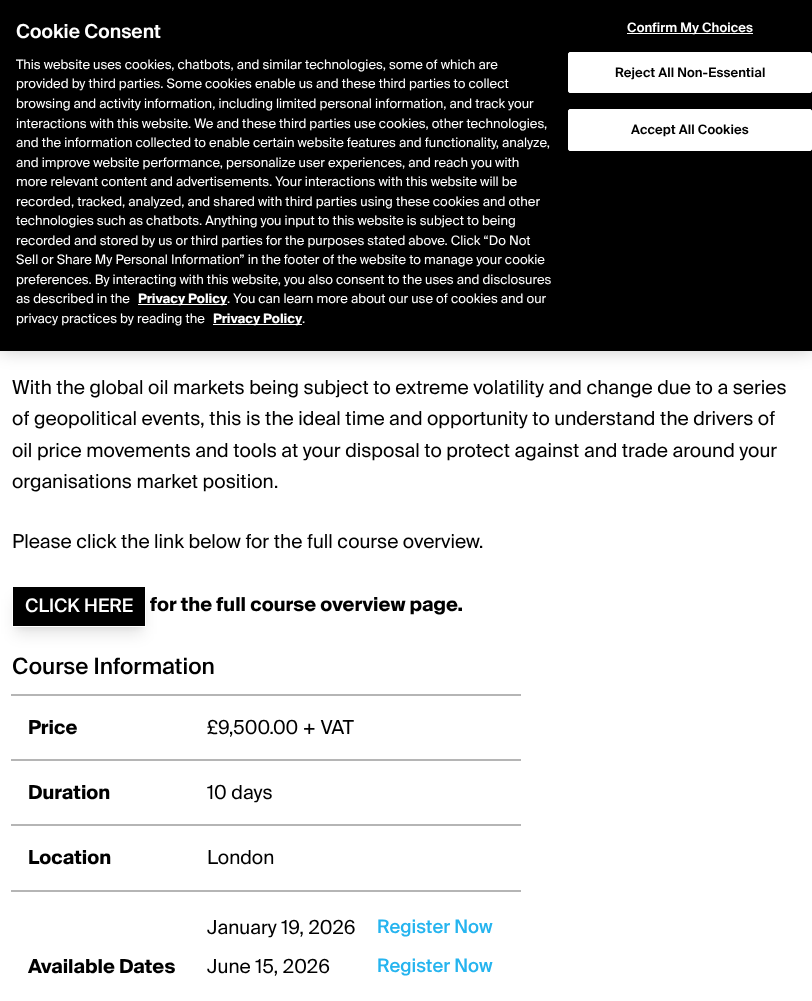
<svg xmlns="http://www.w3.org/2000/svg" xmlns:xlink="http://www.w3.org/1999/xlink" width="812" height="1001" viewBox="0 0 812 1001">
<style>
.cls-1{font:600 19.2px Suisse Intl;fill:#ffffff}
.cls-2{font:13px Suisse Intl;fill:#ffffff}
.cls-3{font:bold 13px Suisse Intl;fill:#ffffff}
.cls-4{font:600 13px Suisse Intl;letter-spacing:0.1px;fill:#ffffff}
.cls-5{font:600 13px Suisse Intl;letter-spacing:0.1px;fill:#000000}
.cls-6{font:19.2px Suisse Intl;fill:#000000}
.cls-7{font:500 18.5px Suisse Intl;fill:#ffffff}
.cls-8{font:bold 19.2px Suisse Intl;fill:#000000}
.cls-9{font:500 22.5px Suisse Intl;fill:#000000}
.cls-10{font:500 18.5px Suisse Intl;fill:#25b4ef}
</style>
<rect width="100%" height="100%" fill="#ffffff"/>
<rect fill="#000000" fill-opacity="0.2" filter="blur(9px)" x="0" y="0" width="812" height="351"/>
<rect fill="#000000" x="0" y="0" width="812" height="351"/>
<rect fill="#ffffff" x="138" y="304" width="89" height="1"/>
<rect fill="#ffffff" x="213" y="324" width="89" height="1"/>
<rect fill="#ffffff" x="627" y="33" width="126" height="1"/>
<rect fill="#ffffff" stroke="#ffffff" x="568.5" y="52.5" width="243" height="40" rx="1.5"/>
<rect fill="#ffffff" stroke="#ffffff" x="568.5" y="109.5" width="243" height="41" rx="1.5"/>
<rect fill="#000000" fill-opacity="0.1" filter="blur(3px)" x="16" y="594" width="126" height="33"/>
<rect fill="#000000" fill-opacity="0.1" filter="blur(7.5px)" x="15" y="599" width="128" height="35"/>
<rect fill="#000000" stroke="#ffffff" x="12.5" y="586.5" width="133" height="40"/>
<rect fill="#b5b5b5" x="11" y="694" width="510" height="2"/>
<rect fill="#b5b5b5" x="11" y="759" width="510" height="2"/>
<rect fill="#b5b5b5" x="11" y="824" width="510" height="2"/>
<rect fill="#b5b5b5" x="11" y="890" width="510" height="2"/>
<text class="cls-1" x="16" y="38">Cookie Consent</text>
<text class="cls-2"><tspan x="16" y="69">This website uses cookies, chatbots, and similar technologies, some of which are</tspan><tspan x="16" y="88">provided by third parties. Some cookies enable us and these third parties to collect</tspan><tspan x="16" y="108">browsing and activity information, including limited personal information, and track your</tspan><tspan x="16" y="128">interactions with this website. We and these third parties use cookies, other technologies,</tspan><tspan x="16" y="147">and the information collected to enable certain website features and functionality, analyze,</tspan><tspan x="16" y="167">and improve website performance, personalize user experiences, and reach you with</tspan><tspan x="16" y="186">more relevant content and advertisements. Your interactions with this website will be</tspan><tspan x="16" y="206">recorded, tracked, analyzed, and shared with third parties using these cookies and other</tspan><tspan x="16" y="225">technologies such as chatbots. Anything you input to this website is subject to being</tspan><tspan x="16" y="245">recorded and stored by us or third parties for the purposes stated above. Click “Do Not</tspan><tspan x="16" y="264">Sell or Share My Personal Information” in the footer of the website to manage your cookie</tspan><tspan x="16" y="284">preferences. By interacting with this website, you also consent to the uses and disclosures</tspan><tspan x="16" y="303">as described in the</tspan></text>
<text class="cls-3" x="138" y="303">Privacy Policy</text>
<text class="cls-2" x="227" y="303">. You can learn more about our use of cookies and our</text>
<text class="cls-2" x="16" y="323">privacy practices by reading the</text>
<text class="cls-3" x="213" y="323">Privacy Policy</text>
<text class="cls-2" x="302" y="323">.</text>
<text class="cls-4" x="627" y="32">Confirm My Choices</text>
<text class="cls-5" x="615" y="77">Reject All Non-Essential</text>
<text class="cls-5" x="631" y="134">Accept All Cookies</text>
<text class="cls-6"><tspan x="12" y="394">With the global oil markets being subject to extreme volatility and change due to a series</tspan><tspan x="12" y="425">of geopolitical events, this is the ideal time and opportunity to understand the drivers of</tspan><tspan x="12" y="457">oil price movements and tools at your disposal to protect against and trade around your</tspan><tspan x="12" y="488">organisations market position.</tspan></text>
<text class="cls-6" x="12" y="548">Please click the link below for the full course overview.</text>
<text class="cls-7" x="25" y="612">CLICK HERE</text>
<text class="cls-8" x="150" y="611">for the full course overview page.</text>
<text class="cls-9" x="12" y="674">Course Information</text>
<text class="cls-8" x="28" y="734">Price</text>
<text class="cls-6" x="207" y="734">£9,500.00 + VAT</text>
<text class="cls-8" x="28" y="799">Duration</text>
<text class="cls-6" x="207" y="799">10 days</text>
<text class="cls-8" x="28" y="864">Location</text>
<text class="cls-6" x="207" y="864">London</text>
<text class="cls-8" x="28" y="973">Available Dates</text>
<text class="cls-6" x="207" y="934">January 19, 2026</text>
<text class="cls-10" x="377" y="933">Register Now</text>
<text class="cls-6" x="207" y="973">June 15, 2026</text>
<text class="cls-10" x="377" y="972">Register Now</text>
</svg>
